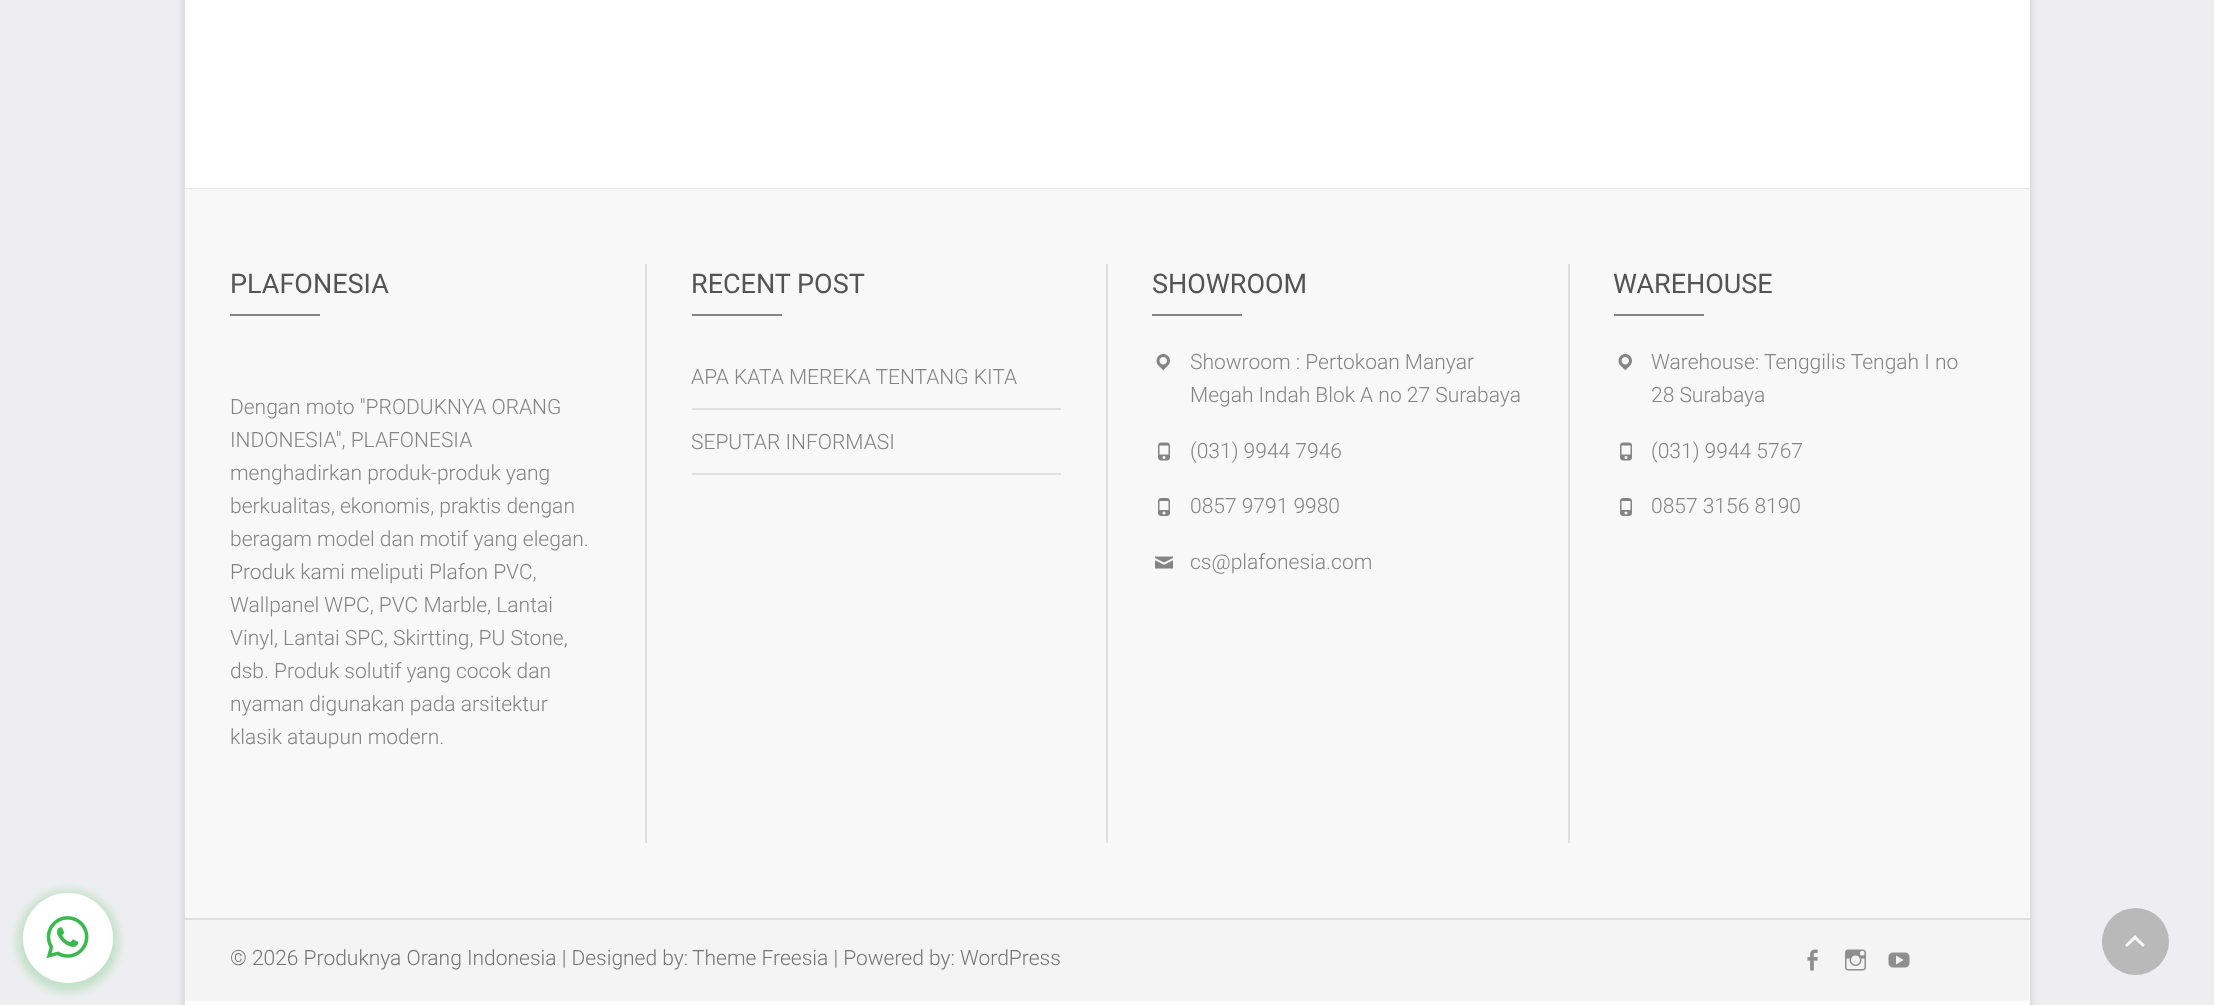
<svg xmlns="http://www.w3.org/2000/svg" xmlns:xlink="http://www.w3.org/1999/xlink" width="2214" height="1005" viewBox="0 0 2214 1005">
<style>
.cls-1{font:27px Roboto;fill:#545454}
.cls-2{font:300 21px Roboto;fill:#848484}
.cls-3{font:300 21px Roboto;fill:#747474}
</style>
<rect width="100%" height="100%" fill="#eeeef0"/>
<rect fill="#3bb84e" fill-opacity="0.24" filter="blur(4.5px)" x="17" y="890" width="102" height="102" rx="51"/>
<circle fill="#ffffff" stroke="#ffffff" stroke-width="8" cx="68" cy="938" r="41"/>
<image xlink:href="image0.png" x="46" y="916" width="43" height="43"/>
<rect fill="#000000" fill-opacity="0.15" filter="blur(4.5px)" x="185" y="-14" width="1845" height="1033"/>
<rect fill="#ffffff" x="185" y="0" width="1845" height="1005"/>
<rect fill="#e6e6e6" x="185" y="188" width="1845" height="1"/>
<rect fill="#f8f8f8" x="185" y="189" width="1845" height="729"/>
<rect fill="#dfdfdf" x="185" y="918" width="1845" height="2"/>
<rect fill="#dfdfdf" x="645" y="264" width="2" height="579"/>
<rect fill="#848484" x="230" y="314" width="90" height="2"/>
<rect fill="#dfdfdf" x="1106" y="264" width="2" height="579"/>
<rect fill="#848484" x="692" y="314" width="90" height="2"/>
<rect fill="#dfdfdf" x="692" y="408" width="369" height="2"/>
<rect fill="#dfdfdf" x="692" y="473" width="369" height="2"/>
<rect fill="#dfdfdf" x="1568" y="264" width="2" height="579"/>
<rect fill="#848484" x="1152" y="314" width="90" height="2"/>
<image xlink:href="image1.png" x="1156" y="354" width="14" height="17"/>
<image xlink:href="image2.png" x="1158" y="442" width="12" height="19"/>
<image xlink:href="image3.png" x="1158" y="498" width="12" height="18"/>
<image xlink:href="image4.png" x="1155" y="556" width="18" height="13"/>
<rect fill="#848484" x="1614" y="314" width="90" height="2"/>
<image xlink:href="image1.png" x="1618" y="354" width="14" height="17"/>
<image xlink:href="image2.png" x="1620" y="442" width="12" height="19"/>
<image xlink:href="image3.png" x="1620" y="498" width="12" height="18"/>
<rect fill="#f4f4f4" x="185" y="920" width="1845" height="81"/>
<image xlink:href="image5.png" x="1807" y="949" width="11" height="22"/>
<image xlink:href="image6.png" x="1845" y="949" width="21" height="22"/>
<image xlink:href="image7.png" x="1888" y="952" width="22" height="16"/>
<circle fill="#b9b9ba" cx="2135.5" cy="941.5" r="33.5"/>
<path fill="#f7f7f8" d="M2143 947L2135 939.5L2127 947L2125 945L2135 935L2145 945Z"/>
<text class="cls-1" x="230" y="293">PLAFONESIA</text>
<text class="cls-2"><tspan x="230" y="414">Dengan moto "PRODUKNYA ORANG</tspan><tspan x="230" y="447">INDONESIA", PLAFONESIA</tspan><tspan x="230" y="480">menghadirkan produk-produk yang</tspan><tspan x="230" y="513">berkualitas, ekonomis, praktis dengan</tspan><tspan x="230" y="546">beragam model dan motif yang elegan.</tspan><tspan x="230" y="579">Produk kami meliputi Plafon PVC,</tspan><tspan x="230" y="612">Wallpanel WPC, PVC Marble, Lantai</tspan><tspan x="230" y="645">Vinyl, Lantai SPC, Skirtting, PU Stone,</tspan><tspan x="230" y="678">dsb. Produk solutif yang cocok dan</tspan><tspan x="230" y="711">nyaman digunakan pada arsitektur</tspan><tspan x="230" y="744">klasik ataupun modern.</tspan></text>
<text class="cls-1" x="691" y="293">RECENT POST</text>
<text class="cls-2" x="691" y="384">APA KATA MEREKA TENTANG KITA</text>
<text class="cls-2" x="691" y="449">SEPUTAR INFORMASI</text>
<text class="cls-1" x="1152" y="293">SHOWROOM</text>
<text class="cls-2"><tspan x="1190" y="369">Showroom : Pertokoan Manyar</tspan><tspan x="1190" y="402">Megah Indah Blok A no 27 Surabaya</tspan></text>
<text class="cls-2" x="1190" y="458">(031) 9944 7946</text>
<text class="cls-2" x="1190" y="513">0857 9791 9980</text>
<text class="cls-2" x="1190" y="569">cs@plafonesia.com</text>
<text class="cls-1" x="1613" y="293">WAREHOUSE</text>
<text class="cls-2"><tspan x="1651" y="369">Warehouse: Tenggilis Tengah I no</tspan><tspan x="1651" y="402">28 Surabaya</tspan></text>
<text class="cls-2" x="1651" y="458">(031) 9944 5767</text>
<text class="cls-2" x="1651" y="513">0857 3156 8190</text>
<text class="cls-3" x="230" y="965">© 2026 Produknya Orang Indonesia | Designed by:</text>
<text class="cls-3" x="692" y="965">Theme Freesia | Powered by: WordPress</text>
</svg>
